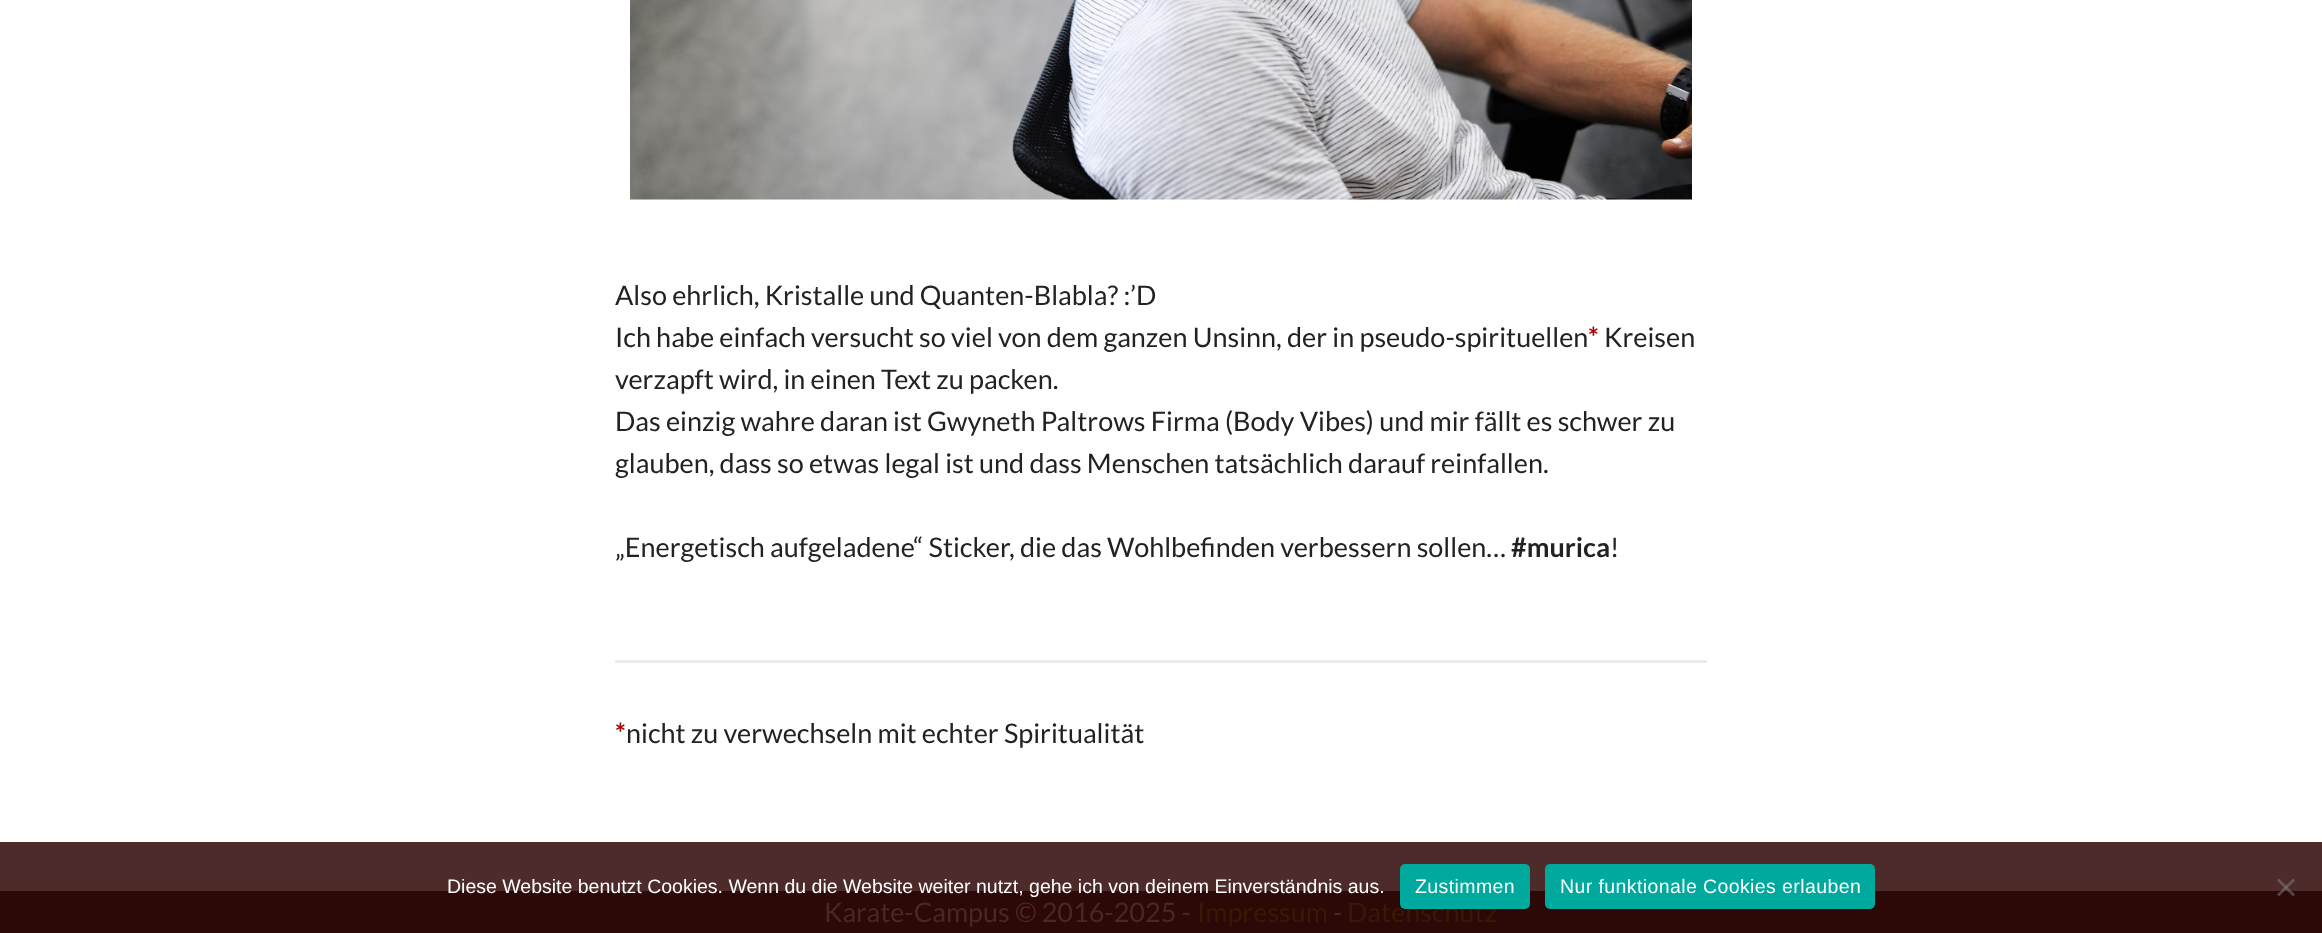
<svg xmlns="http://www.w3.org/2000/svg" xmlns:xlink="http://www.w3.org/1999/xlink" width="2322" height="933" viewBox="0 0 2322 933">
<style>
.cls-1{font:27px Lato;fill:#222222}
.cls-2{font:bold 27px Lato;fill:#a60000}
.cls-3{font:bold 27px Lato;fill:#222222}
.cls-4{font:19.5px Liberation Sans;fill:#ffffff}
.cls-5{font:19.5px Liberation Sans;letter-spacing:0.4px;fill:#ffffff}
.cls-6{font:27px Lato;fill:#4a2625}
.cls-7{font:27px Lato;fill:#361a05}
</style>
<rect width="100%" height="100%" fill="#ffffff"/>
<rect fill="#4d2b2b" x="0" y="842" width="2322" height="49"/>
<image xlink:href="image0.png" x="630" y="0" width="1062" height="200"/>
<rect fill="#ebebeb" x="615" y="660" width="1092" height="3"/>
<rect fill="#2c0806" x="0" y="891" width="2322" height="42"/>
<rect fill="#00a99d" x="1545" y="864" width="330" height="45" rx="5"/>
<path fill="#808080" fill-opacity="0.5" d="M2293 878.5L2295 880.5L2279 896.5L2277 894.5Z"/>
<path fill="#808080" fill-opacity="0.5" d="M2277 880.5L2279 878.5L2295 894.5L2293 896.5Z"/>
<text class="cls-1"><tspan x="615" y="305">Also ehrlich, Kristalle und Quanten-Blabla? :’D</tspan><tspan x="615" y="347">Ich habe einfach versucht so viel von dem ganzen Unsinn, der in pseudo-spirituellen</tspan></text>
<text class="cls-2" x="1588" y="347">*</text>
<text class="cls-1" x="1604" y="347">Kreisen</text>
<text class="cls-1"><tspan x="615" y="389">verzapft wird, in einen Text zu packen.</tspan><tspan x="615" y="431">Das einzig wahre daran ist Gwyneth Paltrows Firma (Body Vibes) und mir fällt es schwer zu</tspan><tspan x="615" y="473">glauben, dass so etwas legal ist und dass Menschen tatsächlich darauf reinfallen.</tspan></text>
<text class="cls-1" x="615" y="557">„Energetisch aufgeladene“ Sticker, die das Wohlbefinden verbessern sollen…</text>
<text class="cls-3" x="1511" y="557">#murica</text>
<text class="cls-1" x="1610" y="557">!</text>
<text class="cls-2" x="615" y="743">*</text>
<text class="cls-1" x="626" y="743">nicht zu verwechseln mit echter Spiritualität</text>
<text class="cls-4" x="447" y="893">Diese Website benutzt Cookies. Wenn du die Website weiter nutzt, gehe ich von deinem Einverständnis aus.</text>
<text class="cls-5" x="1560" y="893">Nur funktionale Cookies erlauben</text>
<text class="cls-6" x="824" y="922">Karate-Campus © 2016-2025 -</text>
<text class="cls-7" x="1197" y="922">Impressum</text>
<text class="cls-6" x="1333" y="922">-</text>
<text class="cls-7" x="1347" y="922">Datenschutz</text>
<rect fill="#00a99d" x="1400" y="864" width="130" height="45" rx="5"/>
<text class="cls-5" x="1415" y="893">Zustimmen</text>
</svg>
